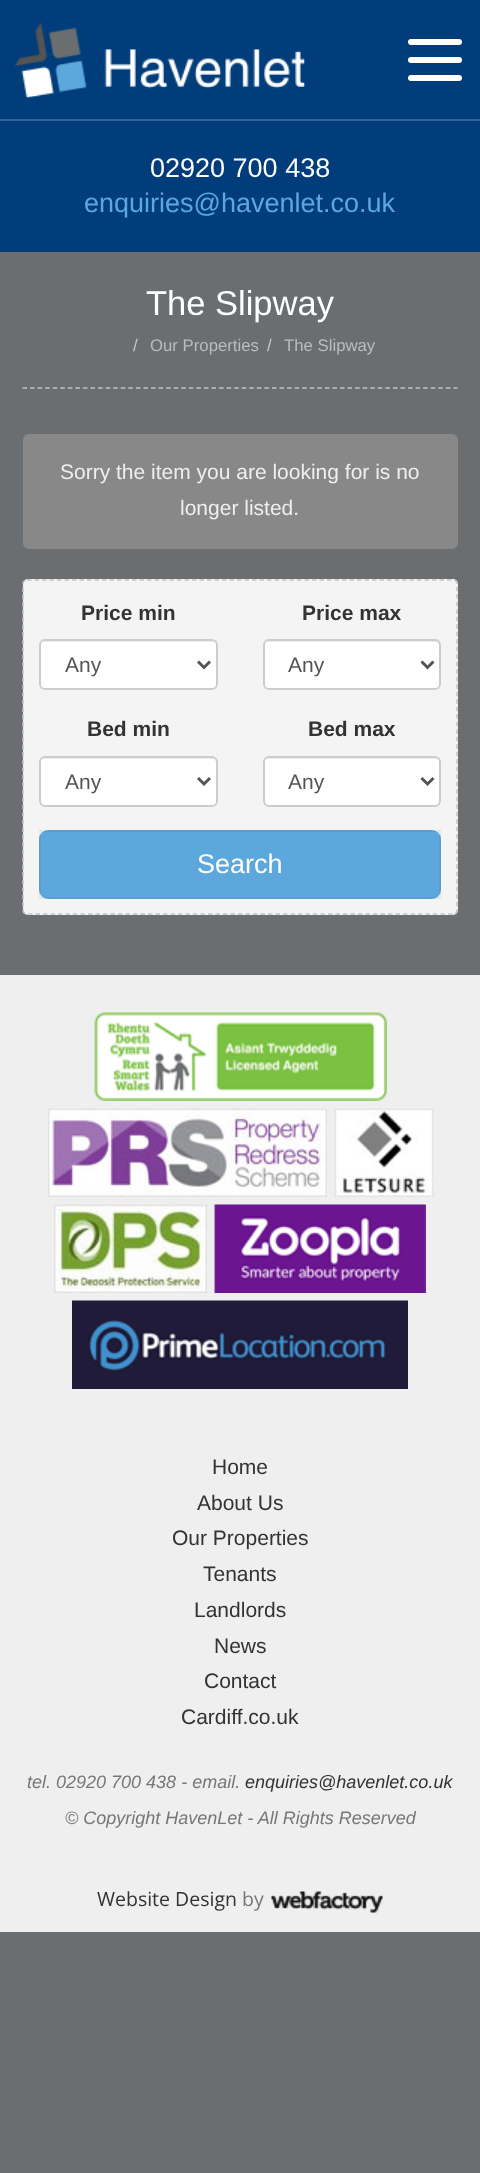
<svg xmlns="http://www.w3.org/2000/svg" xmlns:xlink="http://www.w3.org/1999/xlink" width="480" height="2173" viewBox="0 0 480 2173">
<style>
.cls-1{font:27px Liberation Sans;fill:#ffffff}
.cls-2{font:27px Liberation Sans;fill:#5ca8dc}
.cls-3{font:34.5px Liberation Sans;fill:#ffffff}
.cls-4{font:16.75px Liberation Sans;fill:#c7c8c8}
.cls-5{font:16.75px Liberation Sans;fill:#bbbbbb}
.cls-6{font:21px Liberation Sans;fill:#eeeeee}
.cls-7{font:bold 21px Liberation Sans;fill:#333333}
.cls-8{font:21px Liberation Sans;fill:#555555}
.cls-9{font:21px Liberation Sans;fill:#333333}
.cls-10{font:italic 18px Liberation Sans;fill:#777777}
.cls-11{font:italic 18px Liberation Sans;fill:#333333}
.cls-12{font:19.5px Open Sans;fill:#333333}
.cls-13{font:19.5px Open Sans;fill:#777777}
</style>
<rect width="100%" height="100%" fill="#6b6e70"/>
<rect fill="#003d7a" x="0" y="0" width="480" height="119"/>
<rect fill="#336495" x="0" y="119" width="480" height="2"/>
<image xlink:href="image0.png" x="15" y="22" width="290" height="76"/>
<rect fill="#ffffff" x="408" y="39" width="54" height="6" rx="3"/>
<rect fill="#ffffff" x="408" y="57" width="54" height="6" rx="3"/>
<rect fill="#ffffff" x="408" y="75" width="54" height="6" rx="3"/>
<rect fill="#003d7a" x="0" y="121" width="480" height="131"/>
<path fill="none" stroke="#c2c2c2" stroke-width="1.5" stroke-dasharray="4.5 3.06" d="M22.5 388H457.5"/>
<rect fill="#888888" x="23" y="434" width="435" height="115" rx="6"/>
<rect fill="#f4f4f4" x="23" y="579" width="435" height="336" rx="5"/>
<path fill="none" stroke="#c2c2c2" stroke-width="1.5" stroke-dasharray="4.5 3" d="M27 580H453C455 580 457 581.5 457 583.5V910.5C457 912.5 455 914 453 914H27C25 914 23 912.5 23 910.5V583.5C23 581.5 25 580 27 580Z"/>
<rect fill="#ffffff" x="39" y="639" width="179" height="51" rx="6"/>
<path fill="#ececec" d="M45 642H212C214 642 216 644 216 646C216 643 214 641 211 641H46C44 641 43 642 42 643Z"/>
<rect fill="none" stroke="#cccccc" stroke-width="2" x="40" y="640" width="177" height="49" rx="5"/>
<path fill="none" stroke="#555555" stroke-width="3" d="M198 661.5L204 667.5L210 661.5"/>
<rect fill="#ffffff" x="263" y="639" width="178" height="51" rx="6"/>
<path fill="#ececec" d="M268 642H435C437 642 440 644 440 646C440 643 438 641 435 641H269C266 641 264 643 264 646C264 644 266 642 268 642Z"/>
<rect fill="none" stroke="#cccccc" stroke-width="2" x="264" y="640" width="176" height="49" rx="5"/>
<path fill="none" stroke="#555555" stroke-width="3" d="M421.5 661.5L427.5 667.5L433.5 661.5"/>
<rect fill="#ffffff" x="39" y="756" width="179" height="51" rx="6"/>
<path fill="#ececec" d="M45 759H212C214 759 216 761 216 764V763C216 760 214 758 211 758H46C44 758 43 759 42 760Z"/>
<rect fill="none" stroke="#cccccc" stroke-width="2" x="40" y="757" width="177" height="49" rx="5"/>
<path fill="none" stroke="#555555" stroke-width="3" d="M198 778L204 784L210 778"/>
<rect fill="#ffffff" x="263" y="756" width="178" height="51" rx="6"/>
<path fill="#ececec" d="M268 759H435C437 759 440 761 440 764C440 761 439 759 436 758H269C266 758 264 761 264 764C264 761 266 759 268 759Z"/>
<rect fill="none" stroke="#cccccc" stroke-width="2" x="264" y="757" width="176" height="49" rx="5"/>
<path fill="none" stroke="#555555" stroke-width="3" d="M421.5 778L427.5 784L433.5 778"/>
<rect fill="#5ca8dc" x="39" y="830" width="402" height="69" rx="9"/>
<rect fill="none" stroke="#000000" stroke-opacity="0.05" stroke-width="2" x="40" y="831" width="400" height="67"/>
<rect fill="#efefef" x="0" y="975" width="480" height="957"/>
<image xlink:href="image1.png" x="94" y="1012" width="293" height="89"/>
<image xlink:href="image2.png" x="48" y="1108" width="279" height="89"/>
<image xlink:href="image3.png" x="334" y="1108" width="100" height="89"/>
<image xlink:href="image4.png" x="54" y="1204" width="153" height="89"/>
<image xlink:href="image5.png" x="214" y="1204" width="212" height="89"/>
<image xlink:href="image6.png" x="72" y="1300" width="336" height="89"/>
<image xlink:href="image7.png" x="271" y="1891" width="112" height="22"/>
<text class="cls-1" x="150" y="177">02920 700 438</text>
<text class="cls-2" x="84" y="212">enquiries@havenlet.co.uk</text>
<text class="cls-3" x="146" y="315">The Slipway</text>
<text class="cls-4" x="133" y="351">/</text>
<text class="cls-5" x="150" y="351">Our Properties</text>
<text class="cls-4" x="267" y="351">/</text>
<text class="cls-5" x="284" y="351">The Slipway</text>
<text class="cls-6" x="60" y="479">Sorry the item you are looking for is no</text>
<text class="cls-6" x="180" y="515">longer listed.</text>
<text class="cls-7" x="81" y="620">Price min</text>
<text class="cls-8" x="65" y="672">Any</text>
<text class="cls-7" x="302" y="620">Price max</text>
<text class="cls-8" x="288" y="672">Any</text>
<text class="cls-7" x="87" y="736">Bed min</text>
<text class="cls-8" x="65" y="789">Any</text>
<text class="cls-7" x="308" y="736">Bed max</text>
<text class="cls-8" x="288" y="789">Any</text>
<text class="cls-1" x="197" y="873">Search</text>
<text class="cls-9" x="212" y="1474">Home</text>
<text class="cls-9" x="197" y="1510">About Us</text>
<text class="cls-9" x="172" y="1545">Our Properties</text>
<text class="cls-9" x="203" y="1581">Tenants</text>
<text class="cls-9" x="194" y="1617">Landlords</text>
<text class="cls-9" x="214" y="1653">News</text>
<text class="cls-9" x="204" y="1688">Contact</text>
<text class="cls-9" x="181" y="1724">Cardiff.co.uk</text>
<text class="cls-10" x="27" y="1788">tel. 02920 700 438 - email.</text>
<text class="cls-11" x="245" y="1788">enquiries@havenlet.co.uk</text>
<text class="cls-10" x="65" y="1824">© Copyright HavenLet - All Rights Reserved</text>
<text class="cls-12" x="97" y="1906">Website Design</text>
<text class="cls-13" x="242" y="1906">by</text>
</svg>
